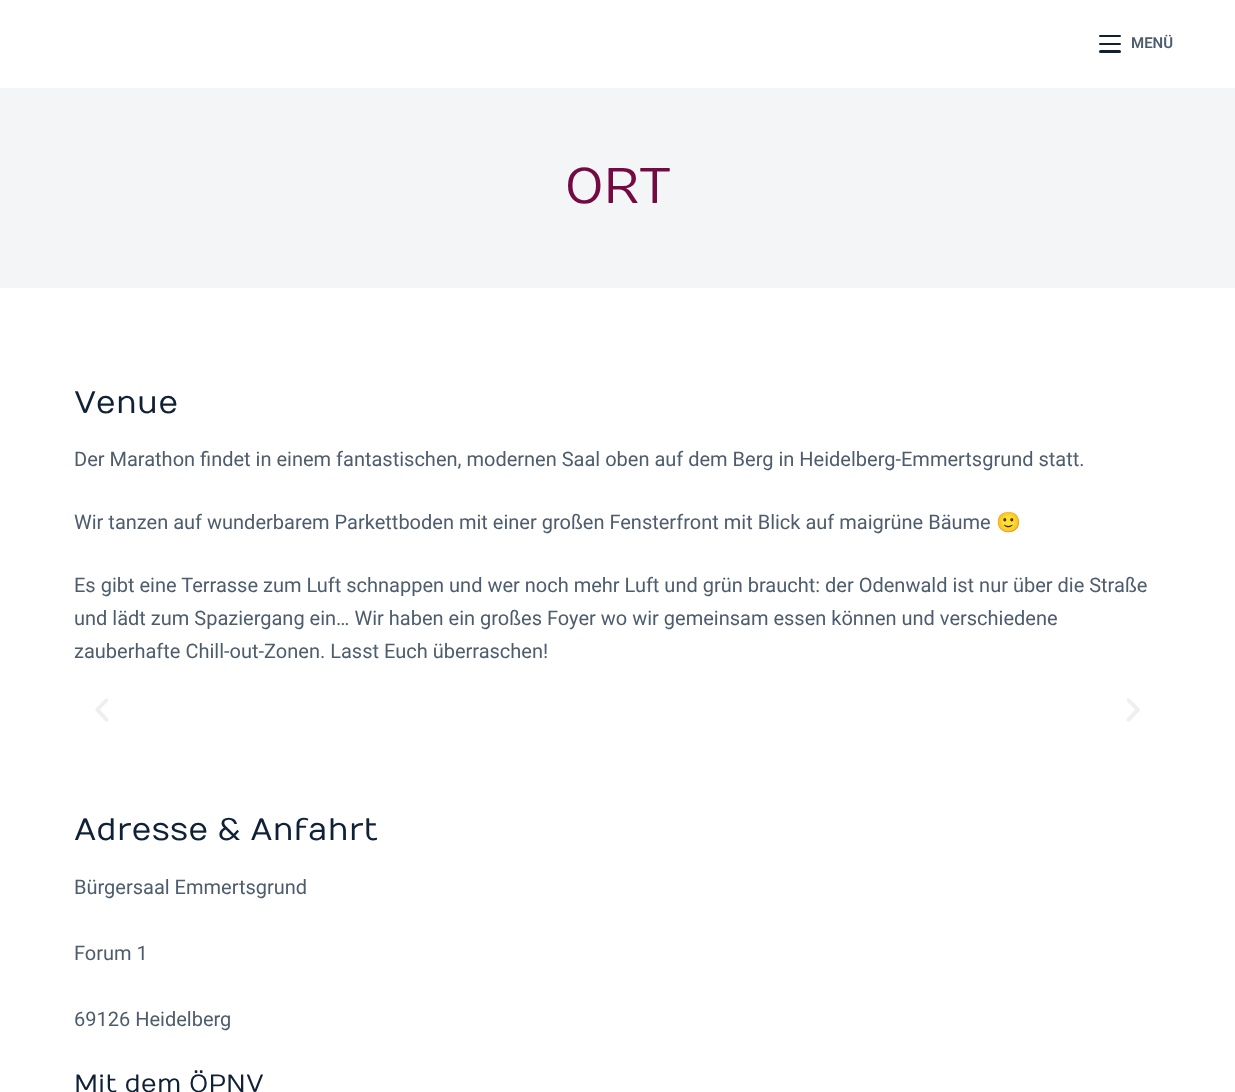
<svg xmlns="http://www.w3.org/2000/svg" xmlns:xlink="http://www.w3.org/1999/xlink" width="1235" height="1092" viewBox="0 0 1235 1092">
<style>
.cls-1{font:600 15px Roboto;fill:#4d5d6d}
.cls-2{font:50px Numans;fill:#740a43}
.cls-3{font:31.25px Numans;fill:#102136}
.cls-4{font:20px Roboto;fill:#4d5d6d}
.cls-5{font:20px Noto Color Emoji;fill:#4d5d6d}
.cls-6{font:25px Numans;fill:#102136}
</style>
<rect width="100%" height="100%" fill="#ffffff"/>
<rect fill="#102136" x="1099" y="35" width="22" height="2" rx="1"/>
<rect fill="#102136" x="1099" y="43" width="22" height="2" rx="1"/>
<rect fill="#102136" x="1099" y="50" width="22" height="3" rx="1.5"/>
<rect fill="#f3f5f7" x="0" y="88" width="1235" height="200"/>
<image xlink:href="image0.png" x="95" y="698" width="14" height="24"/>
<image xlink:href="image1.png" x="1126" y="698" width="14" height="24"/>
<text class="cls-1" x="1131" y="48">MENÜ</text>
<text class="cls-2" x="565" y="203">ORT</text>
<text class="cls-3" x="74" y="413">Venue</text>
<text class="cls-4" x="74" y="466">Der Marathon findet in einem fantastischen, modernen Saal oben auf dem Berg in Heidelberg-Emmertsgrund statt.</text>
<text class="cls-4" x="74" y="529">Wir tanzen auf wunderbarem Parkettboden mit einer großen Fensterfront mit Blick auf maigrüne Bäume</text>
<text class="cls-5" x="996" y="529">🙂</text>
<text class="cls-4"><tspan x="74" y="592">Es gibt eine Terrasse zum Luft schnappen und wer noch mehr Luft und grün braucht: der Odenwald ist nur über die Straße</tspan><tspan x="74" y="625">und lädt zum Spaziergang ein… Wir haben ein großes Foyer wo wir gemeinsam essen können und verschiedene</tspan><tspan x="74" y="658">zauberhafte Chill-out-Zonen. Lasst Euch überraschen!</tspan></text>
<text class="cls-3" x="74" y="840">Adresse &amp; Anfahrt</text>
<text class="cls-4" x="74" y="894">Bürgersaal Emmertsgrund</text>
<text class="cls-4" x="74" y="960">Forum 1</text>
<text class="cls-4" x="74" y="1026">69126 Heidelberg</text>
<text class="cls-6" x="74" y="1092">Mit dem ÖPNV</text>
</svg>
